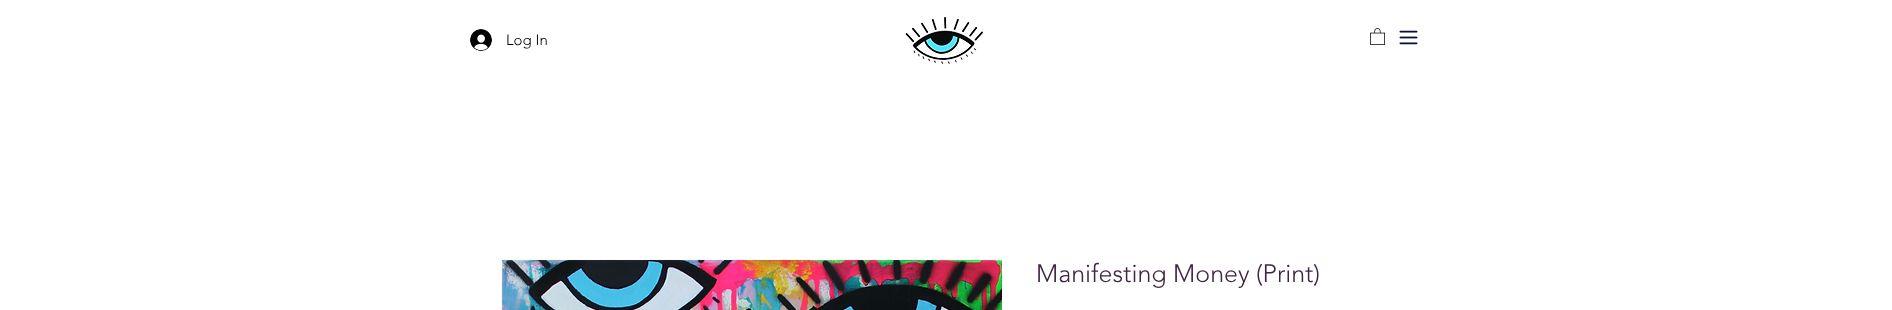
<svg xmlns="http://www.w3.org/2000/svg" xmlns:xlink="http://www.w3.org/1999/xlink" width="1892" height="310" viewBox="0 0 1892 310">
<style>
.cls-1{font:300 15px 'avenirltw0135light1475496';fill:#000000}
.cls-2{font:300 25px 'avenirltw0135light1475496';fill:#3f2540}
</style>
<rect width="100%" height="100%" fill="#ffffff"/>
<image xlink:href="image0.png" x="470" y="29" width="22" height="22"/>
<image xlink:href="image1.png" x="905" y="17" width="78" height="47"/>
<image xlink:href="image2.png" x="1370" y="28" width="15" height="17"/>
<image xlink:href="image3.png" x="1399" y="30" width="19" height="15"/>
<rect fill="none" stroke="#f9f9f9" x="501.5" y="259.5" width="501" height="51"/>
<image xlink:href="image4.png" x="502" y="260" width="500" height="50"/>
<text class="cls-1" x="506" y="45">Log In</text>
<text class="cls-2" x="1036" y="282">Manifesting Money (Print)</text>
</svg>
